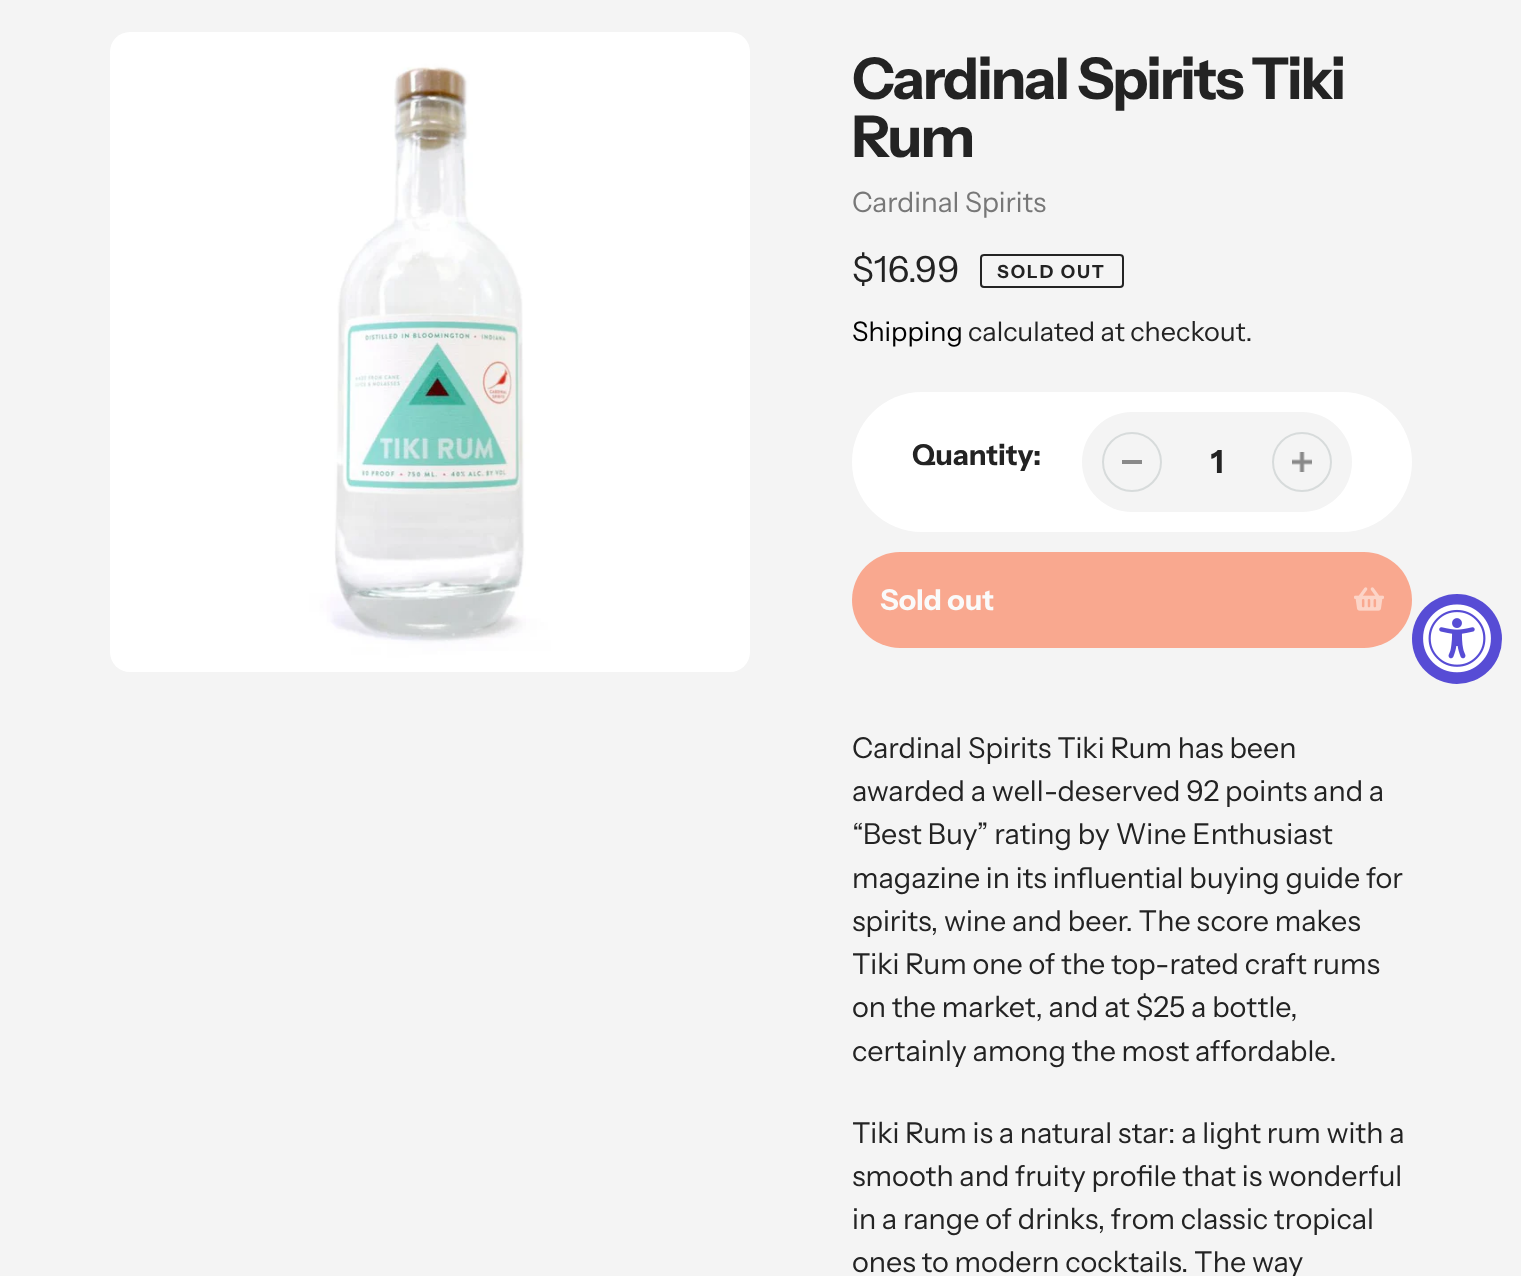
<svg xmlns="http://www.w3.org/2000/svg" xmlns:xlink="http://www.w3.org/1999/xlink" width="1521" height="1276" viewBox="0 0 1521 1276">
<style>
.cls-1{font:bold 57.5px Instrument Sans;letter-spacing:-2px;fill:#232323}
.cls-2{font:28px Instrument Sans;fill:#777777}
.cls-3{font:36px Instrument Sans;fill:#232323}
.cls-4{font:bold 18px Instrument Sans;letter-spacing:2px;fill:#232323}
.cls-5{font:27px Instrument Sans;fill:#000000}
.cls-6{font:27px Instrument Sans;fill:#232323}
.cls-7{font:bold 28.75px Instrument Sans;fill:#232323}
.cls-8{font:bold 32px Instrument Sans;fill:#232323}
.cls-9{font:bold 28.75px Instrument Sans;fill:#fafafa}
.cls-10{font:28.75px Instrument Sans;fill:#232323}
</style>
<rect width="100%" height="100%" fill="#f4f4f4"/>
<image xlink:href="image0.png" x="110" y="32" width="640" height="640"/>
<rect fill="none" stroke="#232323" stroke-width="2" x="981" y="255" width="142" height="32" rx="3"/>
<rect fill="#ffffff" x="852" y="392" width="560" height="140" rx="70"/>
<rect fill="#f4f4f4" x="1082" y="412" width="270" height="100" rx="50"/>
<rect fill="#898989" x="1122" y="460" width="20" height="4"/>
<circle fill="none" stroke="#d7dbdb" stroke-width="2" cx="1132" cy="462" r="29"/>
<image xlink:href="image1.png" x="1292" y="452" width="20" height="20"/>
<circle fill="none" stroke="#d7dbdb" stroke-width="2" cx="1302" cy="462" r="29"/>
<rect fill="#f9a88f" x="852" y="552" width="560" height="96" rx="48"/>
<image xlink:href="image2.png" x="1354" y="587" width="30" height="24"/>
<circle fill="#574cd5" cx="1457" cy="639" r="45"/>
<image xlink:href="image3.png" x="1423" y="604" width="68" height="69"/>
<text class="cls-1"><tspan x="852" y="99">Cardinal Spirits Tiki</tspan><tspan x="852" y="157">Rum</tspan></text>
<text class="cls-2" x="852" y="212">Cardinal Spirits</text>
<text class="cls-3" x="852" y="282">$16.99</text>
<text class="cls-4" x="997" y="278">SOLD OUT</text>
<text class="cls-5" x="852" y="341">Shipping</text>
<text class="cls-6" x="968" y="341">calculated at checkout.</text>
<text class="cls-7" x="912" y="465">Quantity:</text>
<text class="cls-8" x="1211" y="473">1</text>
<text class="cls-9" x="880" y="610">Sold out</text>
<text class="cls-10"><tspan x="852" y="758">Cardinal Spirits Tiki Rum has been</tspan><tspan x="852" y="801">awarded a well-deserved 92 points and a</tspan><tspan x="852" y="844">“Best Buy” rating by Wine Enthusiast</tspan><tspan x="852" y="888">magazine in its influential buying guide for</tspan><tspan x="852" y="931">spirits, wine and beer. The score makes</tspan><tspan x="852" y="974">Tiki Rum one of the top-rated craft rums</tspan><tspan x="852" y="1017">on the market, and at $25 a bottle,</tspan><tspan x="852" y="1061">certainly among the most affordable.</tspan></text>
<text class="cls-10"><tspan x="852" y="1143">Tiki Rum is a natural star: a light rum with a</tspan><tspan x="852" y="1186">smooth and fruity profile that is wonderful</tspan><tspan x="852" y="1229">in a range of drinks, from classic tropical</tspan><tspan x="852" y="1272">ones to modern cocktails. The way</tspan></text>
</svg>
